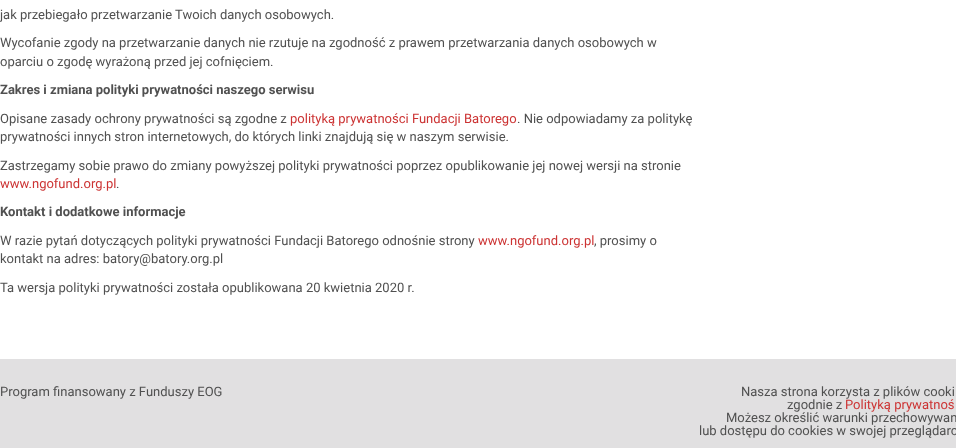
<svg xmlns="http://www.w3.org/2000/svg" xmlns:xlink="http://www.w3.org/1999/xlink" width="956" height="448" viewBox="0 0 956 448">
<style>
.cls-1{font:13px Roboto;fill:#505050}
.cls-2{font:bold 13px Roboto;fill:#505050}
.cls-3{font:13px Roboto;fill:#cc3333}
</style>
<rect width="100%" height="100%" fill="#ffffff"/>
<rect fill="#e1e0e1" x="0" y="359" width="956" height="89"/>
<text class="cls-1" x="0" y="19">jak przebiegało przetwarzanie Twoich danych osobowych.</text>
<text class="cls-1"><tspan x="0" y="47">Wycofanie zgody na przetwarzanie danych nie rzutuje na zgodność z prawem przetwarzania danych osobowych w</tspan><tspan x="0" y="66">oparciu o zgodę wyrażoną przed jej cofnięciem.</tspan></text>
<text class="cls-2" x="0" y="94">Zakres i zmiana polityki prywatności naszego serwisu</text>
<text class="cls-1" x="0" y="123">Opisane zasady ochrony prywatności są zgodne z</text>
<text class="cls-3" x="290" y="123">polityką prywatności Fundacji Batorego</text>
<text class="cls-1" x="517" y="123">. Nie odpowiadamy za politykę</text>
<text class="cls-1" x="0" y="141">prywatności innych stron internetowych, do których linki znajdują się w naszym serwisie.</text>
<text class="cls-1" x="0" y="170">Zastrzegamy sobie prawo do zmiany powyższej polityki prywatności poprzez opublikowanie jej nowej wersji na stronie</text>
<text class="cls-3" x="0" y="188">www.ngofund.org.pl</text>
<text class="cls-1" x="116" y="188">.</text>
<text class="cls-2" x="0" y="216">Kontakt i dodatkowe informacje</text>
<text class="cls-1" x="0" y="245">W razie pytań dotyczących polityki prywatności Fundacji Batorego odnośnie strony</text>
<text class="cls-3" x="478" y="245">www.ngofund.org.pl</text>
<text class="cls-1" x="594" y="245">, prosimy o</text>
<text class="cls-1" x="0" y="263">kontakt na adres: batory@batory.org.pl</text>
<text class="cls-1" x="0" y="292">Ta wersja polityki prywatności została opublikowana 20 kwietnia 2020 r.</text>
<text class="cls-1" x="0" y="396">Program finansowany z Funduszy EOG</text>
<text class="cls-1" x="741" y="396">Nasza strona korzysta z plików cooki</text>
<text class="cls-1" x="787" y="409">zgodnie z</text>
<text class="cls-3" x="845" y="409">Polityką prywatnoś</text>
<text class="cls-1" x="726" y="422">Możesz określić warunki przechowywan</text>
<text class="cls-1" x="699" y="435">lub dostępu do cookies w swojej przeglądarc</text>
</svg>
